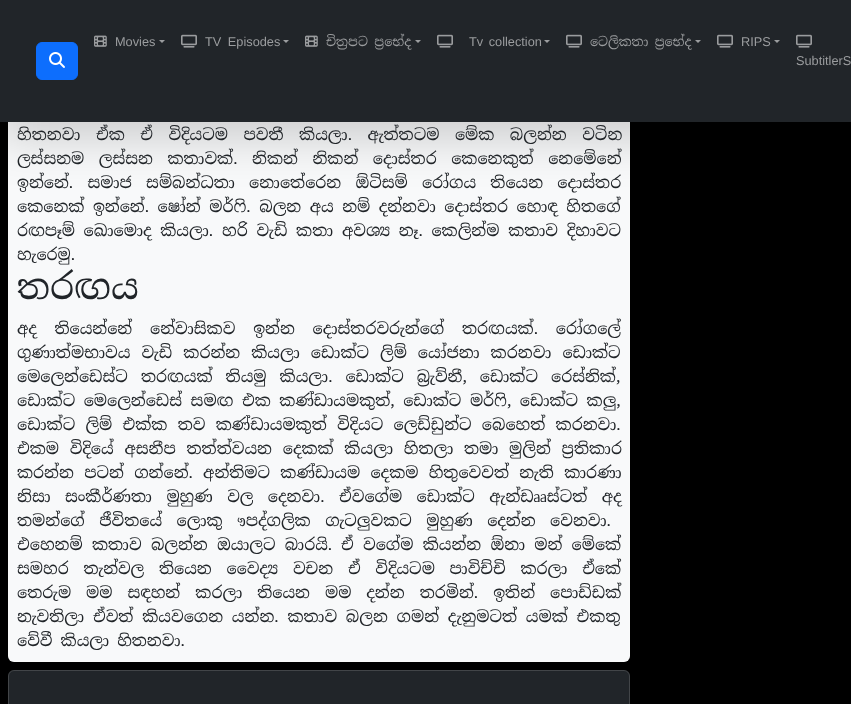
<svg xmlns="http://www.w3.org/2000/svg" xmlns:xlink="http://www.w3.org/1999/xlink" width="851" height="704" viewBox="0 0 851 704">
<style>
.cls-1{font:12.75px Liberation Sans;fill:#9b9d9f}
.cls-2{font:12.75px Noto Serif Sinhala;fill:#9b9d9f}
.cls-3{font:16px Noto Serif Sinhala;fill:#212529}
.cls-4{font:35px Noto Serif Sinhala;fill:#212529}
</style>
<rect width="100%" height="100%" fill="#000000"/>
<rect fill="#f8f9fa" x="8" y="18" width="622" height="644" rx="6"/>
<rect fill="none" stroke="#ffffff" stroke-opacity="0.15" x="8.5" y="18.5" width="621" height="643" rx="5.5"/>
<rect fill="#000000" fill-opacity="0.18" filter="blur(24px)" x="0" y="16" width="851" height="122"/>
<rect fill="#212529" x="0" y="0" width="851" height="122"/>
<rect fill="#0d6efd" stroke="#0d6efd" x="36.5" y="42.5" width="41" height="37" rx="5.5"/>
<image xlink:href="image0.png" x="49" y="52" width="16" height="16"/>
<image xlink:href="image1.png" x="94" y="35" width="13" height="12"/>
<path fill="#9b9d9f" d="M159 40H165L162 43Z"/>
<image xlink:href="image2.png" x="181" y="34" width="16" height="14"/>
<path fill="#9b9d9f" d="M283 40H289L286 43Z"/>
<image xlink:href="image1.png" x="305" y="35" width="13" height="12"/>
<path fill="#9b9d9f" d="M415 40H421L418 43Z"/>
<image xlink:href="image2.png" x="437" y="34" width="16" height="14"/>
<path fill="#9b9d9f" d="M544 40H550L547 43Z"/>
<image xlink:href="image2.png" x="566" y="34" width="16" height="14"/>
<path fill="#9b9d9f" d="M695 40H701L698 43Z"/>
<image xlink:href="image2.png" x="717" y="34" width="16" height="14"/>
<path fill="#9b9d9f" d="M774 40H780L777 43Z"/>
<image xlink:href="image2.png" x="796" y="34" width="16" height="14"/>
<rect fill="#212529" x="8" y="670" width="622" height="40" rx="6"/>
<rect fill="none" stroke="#ffffff" stroke-opacity="0.15" x="8.5" y="670.5" width="621" height="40" rx="5.5"/>
<text class="cls-1" x="115" y="46">Movies</text>
<text class="cls-1" x="205" y="46" word-spacing="3">TV Episodes</text>
<text class="cls-2" x="326" y="46">චිත්‍රපට ප්‍රභේද</text>
<text class="cls-1" x="469" y="46" word-spacing="2">Tv collection</text>
<text class="cls-2" x="590" y="46">ටෙලිකතා ප්‍රභේද</text>
<text class="cls-1" x="741" y="46">RIPS</text>
<text class="cls-1" x="796" y="65">SubtitlerS</text>
<text class="cls-3"><tspan x="17" y="140" word-spacing="7.5">හිතනවා ඒක ඒ විදියටම පවතී කියලා. ඇත්තටම මේක බලන්න වටින</tspan><tspan x="17" y="164" word-spacing="6.5">ලස්සනම ලස්සන කතාවක්. නිකන් නිකන් දොස්තර කෙනෙකුත් නෙමේනේ</tspan><tspan x="17" y="188" word-spacing="6.25">ඉන්නේ. සමාජ සම්බන්ධතා නොතේරෙන ඕටිසම් රෝගය තියෙන දොස්තර</tspan><tspan x="17" y="212" word-spacing="0.5">කෙනෙක් ඉන්නේ. ෂෝන් මර්ෆි. බලන අය නම් දන්නවා දොස්තර හොඳ හිතගේ</tspan><tspan x="17" y="236" word-spacing="0.75">රඟපෑම් ඛොමොද කියලා.</tspan></text>
<text class="cls-3" x="222" y="236" word-spacing="0.75">හරි වැඩි කතා අවශ්‍ය නෑ. කෙලින්ම කතාව දිහාවට</text>
<text class="cls-3" x="17" y="260">හැරෙමු.</text>
<text class="cls-4" x="17" y="299">තරඟය</text>
<text class="cls-3"><tspan x="17" y="334" word-spacing="9.75">අද තියෙන්නේ නේවාසිකව ඉන්න දොස්තරවරුන්ගේ තරඟයක්. රෝගලේ</tspan><tspan x="17" y="358" word-spacing="3">ගුණාත්මභාවය වැඩි කරන්න කියලා ඩොක්ට ලිම් යෝජනා කරනවා ඩොක්ට</tspan><tspan x="17" y="382" word-spacing="5">මෙලෙන්ඩෙස්ට තරඟයක් තියමු කියලා. ඩොක්ට බ්‍රැව්නී, ඩොක්ට රෙස්නික්,</tspan><tspan x="17" y="406" word-spacing="0.5">ඩොක්ට මෙලෙන්ඩෙස් සමඟ එක කණ්ඩායමකුත්, ඩොක්ට මර්ෆි, ඩොක්ට කලු,</tspan><tspan x="17" y="430" word-spacing="2.25">ඩොක්ට ලිම් එක්ක තව කණ්ඩායමකුත් විදියට ලෙඩ්ඩුන්ට බෙහෙත් කරනවා.</tspan><tspan x="17" y="454" word-spacing="2.75">එකම විදියේ අසනීප තත්ත්වයන දෙකක් කියලා හිතලා තමා මුලින් ප්‍රතිකාර</tspan><tspan x="17" y="478" word-spacing="2.25">කරන්න පටන් ගන්නේ. අන්තිමට කණ්ඩායම දෙකම හිතුවෙවත් නැති කාරණා</tspan><tspan x="17" y="502" word-spacing="6.5">නිසා සංකීර්ණතා මුහුණ වල දෙනවා. ඒවගේම ඩොක්ට ඇන්ඩෲස්ටත් අද</tspan><tspan x="17" y="526" word-spacing="6.5">තමන්ගේ ජීවිතයේ ලොකු පෞද්ගලික ගැටලුවකට මුහුණ දෙන්න වෙනවා.</tspan><tspan x="17" y="550" word-spacing="1.25">එහෙනම් කතාව බලන්න ඔයාලට බාරයි.</tspan></text>
<text class="cls-3" x="341" y="550" word-spacing="1.25">ඒ වගේම කියන්න ඕනා මන් මේකේ</text>
<text class="cls-3"><tspan x="17" y="574" word-spacing="6.75">සමහර තැන්වල තියෙන වෛද්‍ය වචන ඒ විදියටම පාවිච්චි කරලා ඒකේ</tspan><tspan x="17" y="598" word-spacing="7">තෙරුම මම සඳහන් කරලා තියෙන මම දන්න තරමින්. ඉතින් පොඩ්ඩක්</tspan><tspan x="17" y="622" word-spacing="0.75">නැවතිලා ඒවත් කියවගෙන යන්න. කතාව බලන ගමන් දැනුමටත් යමක් එකතු</tspan><tspan x="17" y="646">වේවී කියලා හිතනවා.</tspan></text>
</svg>
